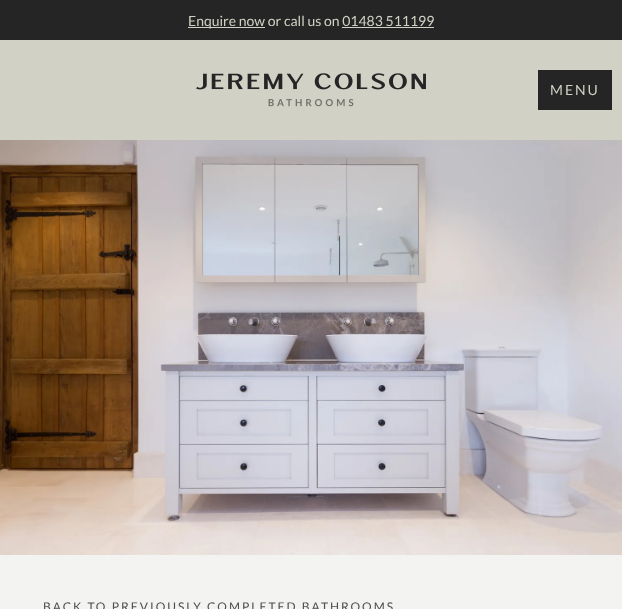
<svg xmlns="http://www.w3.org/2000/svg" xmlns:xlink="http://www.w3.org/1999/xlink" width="622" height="609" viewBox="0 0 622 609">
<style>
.cls-1{font:14px Lato;fill:#d1d1c5}
.cls-2{font:14px Lato;letter-spacing:2px;fill:#d1d1c5}
.cls-3{font:12px Lato;letter-spacing:2px;fill:#4e4e4e}
</style>
<rect width="100%" height="100%" fill="#f3f3f1"/>
<rect fill="#252525" x="0" y="0" width="622" height="40"/>
<rect fill="#d1d1c5" x="188" y="27" width="77" height="1"/>
<rect fill="#d1d1c5" x="342" y="27" width="92" height="1"/>
<rect fill="#d1d1c5" x="0" y="40" width="622" height="100"/>
<image xlink:href="image0.png" x="196" y="73" width="230" height="34"/>
<rect fill="#252525" x="538" y="70" width="74" height="40"/>
<image xlink:href="image1.png" x="0" y="140" width="622" height="415"/>
<text class="cls-1" x="188" y="26">Enquire now or call us on 01483 511199</text>
<text class="cls-2" x="550" y="95">MENU</text>
<text class="cls-3" x="43" y="611">BACK TO PREVIOUSLY COMPLETED BATHROOMS</text>
</svg>
